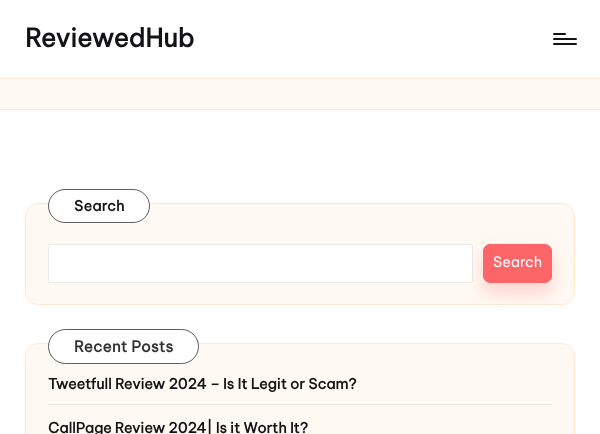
<svg xmlns="http://www.w3.org/2000/svg" xmlns:xlink="http://www.w3.org/1999/xlink" width="600" height="434" viewBox="0 0 600 434">
<style>
.cls-1{font:bold 25.5px Be Vietnam Pro;fill:#131315}
.cls-2{font:bold 14.4px Be Vietnam Pro;letter-spacing:0.25px;fill:#131315}
.cls-3{font:14.4px Be Vietnam Pro;fill:#ffffff}
.cls-4{font:bold 15.25px Be Vietnam Pro;letter-spacing:0.25px;fill:#333333}
.cls-5{font:bold 14.4px Be Vietnam Pro;fill:#131315}
</style>
<rect width="100%" height="100%" fill="#ffffff"/>
<rect fill="#131315" x="553" y="38" width="24" height="2" rx="1"/>
<rect fill="#131315" x="553" y="33" width="13" height="2" rx="1"/>
<rect fill="#131315" x="553" y="43" width="24" height="2" rx="1"/>
<rect fill="#fff9f3" x="0" y="79" width="600" height="30"/>
<rect fill="#ffe7d2" x="0" y="78" width="600" height="1"/>
<rect fill="#ffe7d2" x="0" y="109" width="600" height="1"/>
<rect fill="#fff9f3" stroke="#ffe7d2" x="25.5" y="203.5" width="549" height="101" rx="12.5"/>
<rect fill="#ffffff" x="48" y="189" width="102" height="34" rx="17"/>
<rect fill="none" stroke="#272727" stroke-opacity="0.75" x="48.5" y="189.5" width="101" height="33" rx="16.5"/>
<rect fill="#ffffff" x="48" y="244" width="425" height="39" rx="2.5"/>
<rect fill="none" stroke="#bebebe" stroke-opacity="0.3" x="48.5" y="244.5" width="424" height="38" rx="2"/>
<rect fill="#fc6668" fill-opacity="0.27" filter="blur(9px)" x="483" y="254" width="69" height="39" rx="7"/>
<rect fill="#fc6668" stroke="#fc6668" x="483.5" y="244.5" width="68" height="38" rx="6.5"/>
<rect fill="#fff9f3" stroke="#ffe7d2" x="25.5" y="343.5" width="549" height="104" rx="12.5"/>
<rect fill="#ffffff" x="48" y="329" width="151" height="35" rx="17.5"/>
<rect fill="none" stroke="#272727" stroke-opacity="0.75" x="48.5" y="329.5" width="150" height="34" rx="17"/>
<rect fill="#ece7e3" x="48" y="404" width="504" height="1"/>
<text class="cls-1" x="25" y="47">ReviewedHub</text>
<text class="cls-2" x="74" y="211">Search</text>
<text class="cls-3" x="493" y="267">Search</text>
<text class="cls-4" x="74" y="352">Recent Posts</text>
<text class="cls-5" x="48" y="389">Tweetfull Review 2024 – Is It Legit or Scam?</text>
<text class="cls-5" x="48" y="433">CallPage Review 2024| Is it Worth It?</text>
</svg>
